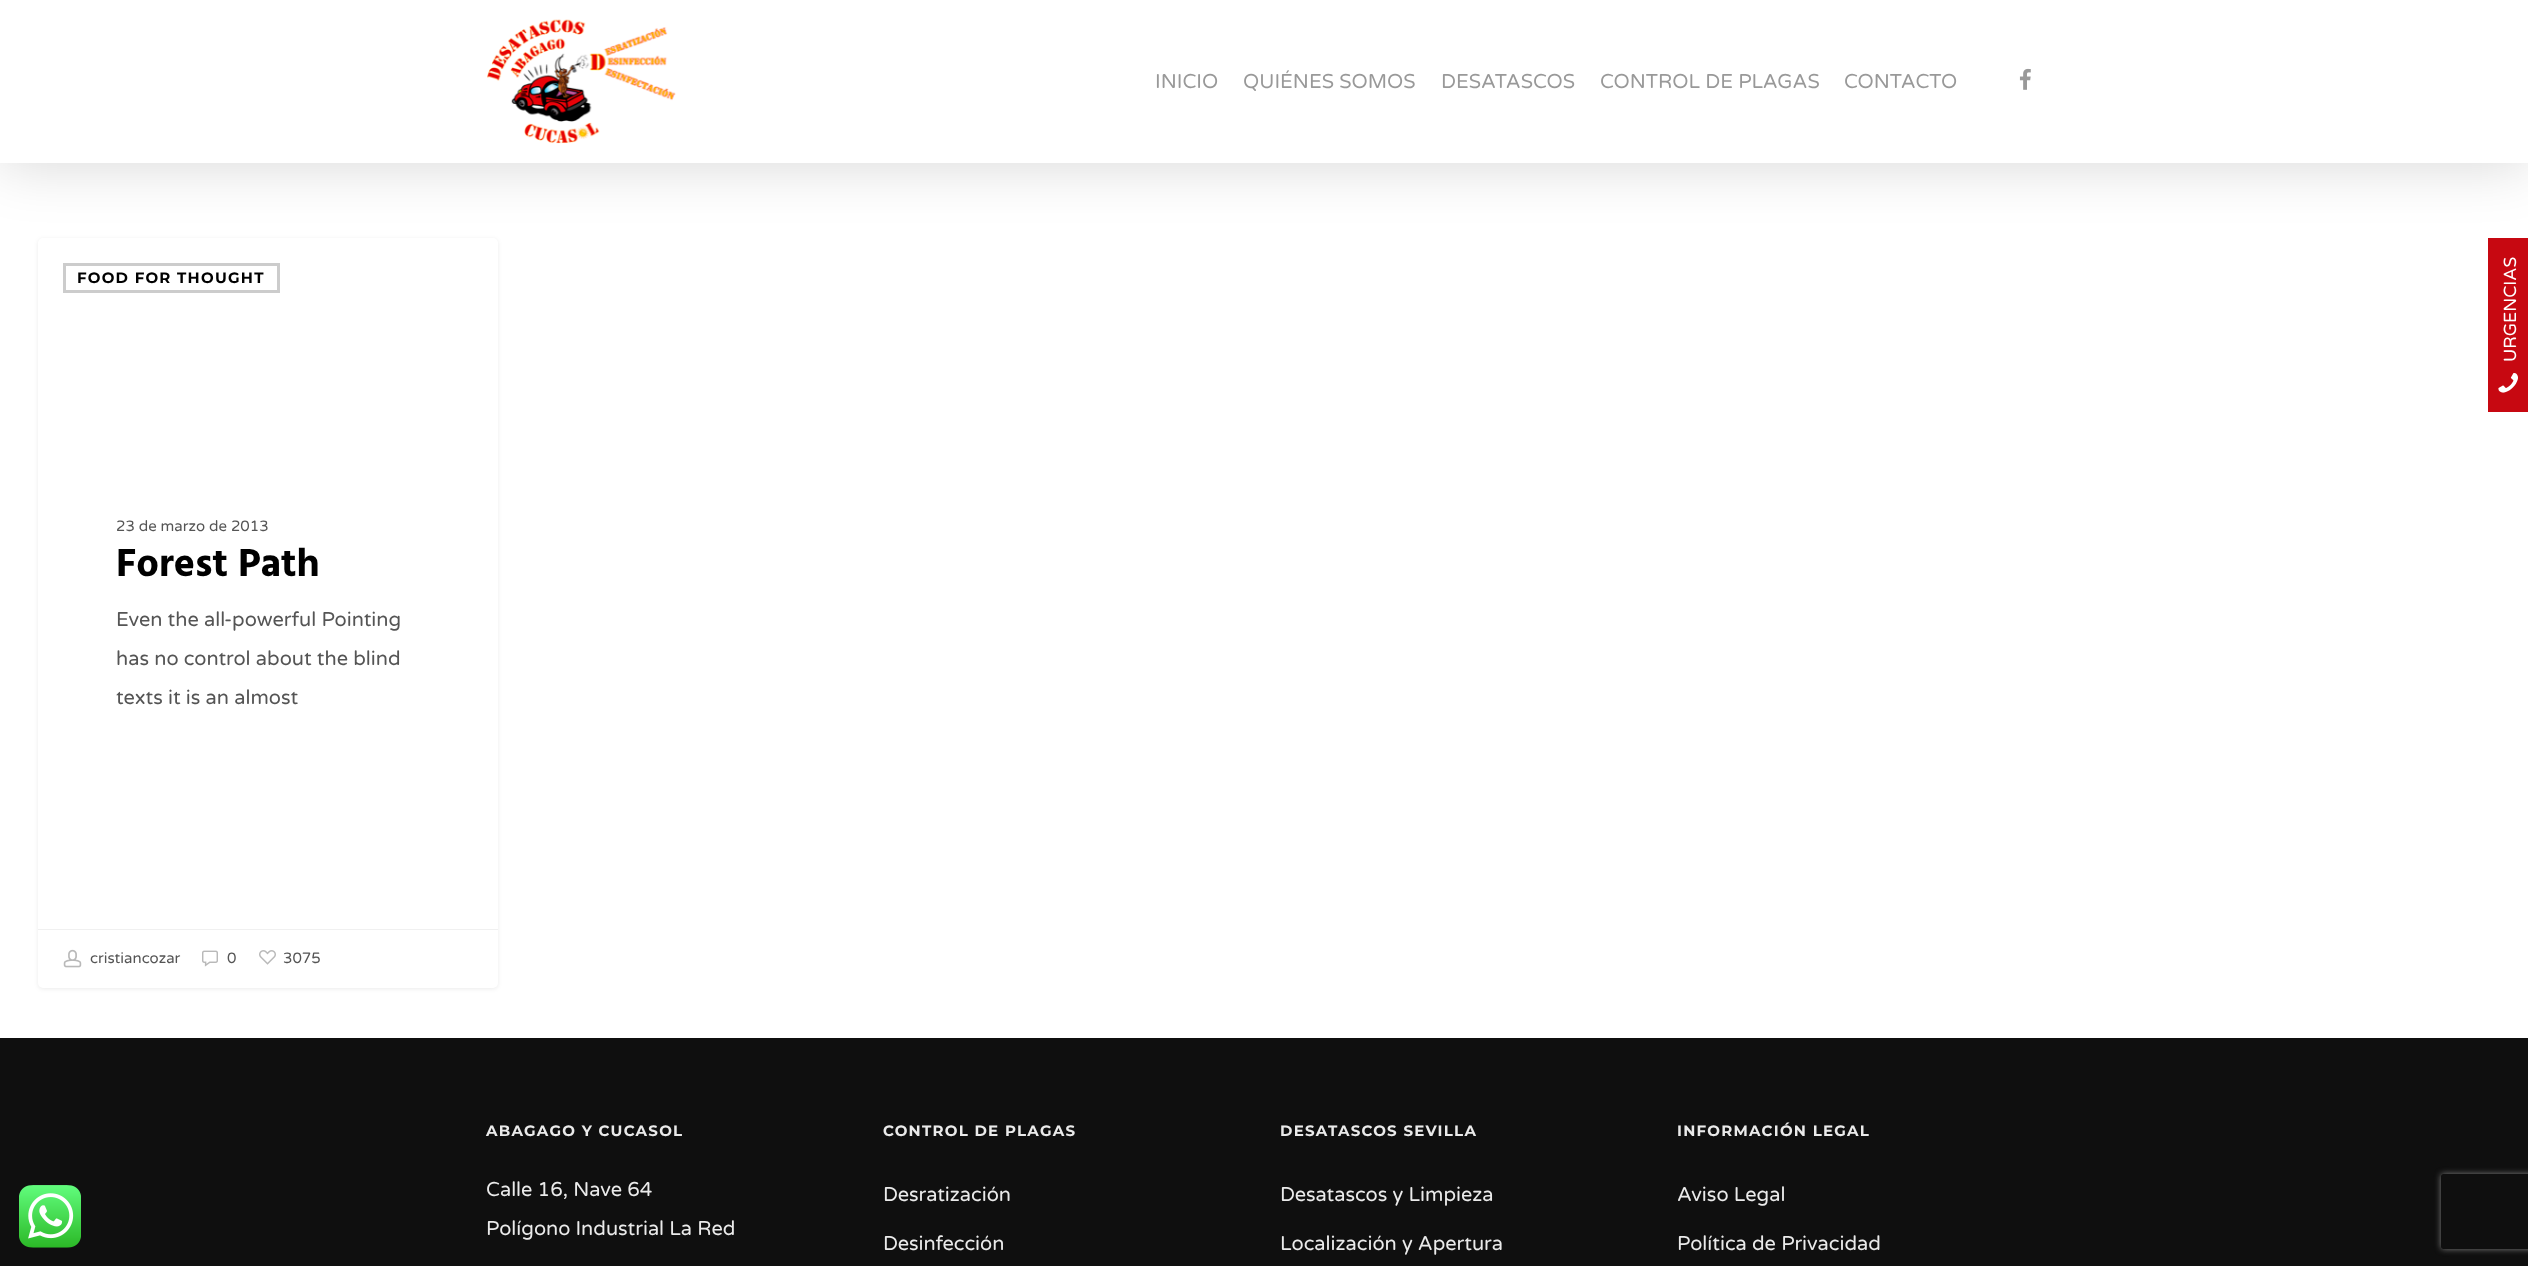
<svg xmlns="http://www.w3.org/2000/svg" xmlns:xlink="http://www.w3.org/1999/xlink" width="2528" height="1266" viewBox="0 0 2528 1266">
<style>
.cls-1{font:20px Varela Round;fill:#999999}
.cls-2{font:100 15px Montserrat;letter-spacing:1.25px;fill:#000000}
.cls-3{font:15px Varela Round;fill:#555555}
.cls-4{font:bold 40px Hind;fill:#000000}
.cls-5{font:20px Varela Round;fill:#555555}
.cls-6{font:17.5px Varela Round;fill:#ffffff}
.cls-7{font:100 15px Montserrat;letter-spacing:1.25px;fill:#eaeaea}
.cls-8{font:20px Varela Round;fill:#eaeaea}
</style>
<defs>
<clipPath id="clip1"><path d="M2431 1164H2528V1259H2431ZM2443.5 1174H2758.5C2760 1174 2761 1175 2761 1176.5V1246.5C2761 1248 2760 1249 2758.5 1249H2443.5C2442 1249 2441 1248 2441 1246.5V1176.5C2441 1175 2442 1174 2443.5 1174Z" clip-rule="evenodd"/></clipPath>
</defs>
<rect width="100%" height="100%" fill="#ffffff"/>
<rect fill="#000000" fill-opacity="0.08" filter="blur(2px)" x="38" y="239" width="460" height="750" rx="5"/>
<rect fill="#ffffff" x="38" y="238" width="460" height="750" rx="5"/>
<rect fill="#000000" fill-opacity="0.15" filter="blur(28px)" x="0" y="4" width="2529" height="162"/>
<rect fill="#ffffff" x="0" y="0" width="2528" height="163"/>
<image xlink:href="image0.png" x="487" y="19" width="189" height="125"/>
<image xlink:href="image1.png" x="2019" y="68" width="12" height="22"/>
<rect fill="none" stroke="#cccccc" stroke-width="3" x="64.5" y="264.5" width="214" height="27"/>
<rect fill="#f0f0f0" x="38" y="929" width="460" height="1"/>
<image xlink:href="image2.png" x="63" y="949" width="19" height="19"/>
<image xlink:href="image3.png" x="202" y="950" width="16" height="17"/>
<image xlink:href="image4.png" x="259" y="950" width="17" height="15"/>
<rect fill="#c70811" x="2488" y="238" width="40" height="174"/>
<image xlink:href="image5.png" x="2498" y="373" width="20" height="20"/>
<rect fill="#0f0f0f" x="0" y="1038" width="2528" height="228"/>
<image xlink:href="image6.png" x="19" y="1185" width="62" height="63"/>
<g clip-path="url(#clip1)">
<rect fill="#808080" filter="blur(3px)" x="2441" y="1174" width="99" height="75" rx="2.5"/>
</g>
<text class="cls-1" x="1155" y="88">INICIO</text>
<text class="cls-1" x="1243" y="88">QUIÉNES SOMOS</text>
<text class="cls-1" x="1441" y="88">DESATASCOS</text>
<text class="cls-1" x="1600" y="88">CONTROL DE PLAGAS</text>
<text class="cls-1" x="1844" y="88">CONTACTO</text>
<text class="cls-2" x="77" y="283">FOOD FOR THOUGHT</text>
<text class="cls-3" x="116" y="531">23 de marzo de 2013</text>
<text class="cls-4" x="116" y="576">Forest Path</text>
<text class="cls-5"><tspan x="116" y="626">Even the all-powerful Pointing</tspan><tspan x="116" y="665">has no control about the blind</tspan><tspan x="116" y="704">texts it is an almost</tspan></text>
<text class="cls-3" x="90" y="963">cristiancozar</text>
<text class="cls-3" x="227" y="963">0</text>
<text class="cls-3" x="283" y="963">3075</text>
<text class="cls-6" x="2516" y="362" transform="rotate(-90 2516 362)">URGENCIAS</text>
<text class="cls-7" x="486" y="1136">ABAGAGO Y CUCASOL</text>
<text class="cls-8"><tspan x="486" y="1196">Calle 16, Nave 64</tspan><tspan x="486" y="1235">Polígono Industrial La Red</tspan></text>
<text class="cls-7" x="883" y="1136">CONTROL DE PLAGAS</text>
<text class="cls-8" x="883" y="1201">Desratización</text>
<text class="cls-8" x="883" y="1250">Desinfección</text>
<text class="cls-7" x="1280" y="1136">DESATASCOS SEVILLA</text>
<text class="cls-8" x="1280" y="1201">Desatascos y Limpieza</text>
<text class="cls-8" x="1280" y="1250">Localización y Apertura</text>
<text class="cls-7" x="1677" y="1136">INFORMACIÓN LEGAL</text>
<text class="cls-8" x="1677" y="1201">Aviso Legal</text>
<text class="cls-8" x="1677" y="1250">Política de Privacidad</text>
</svg>
